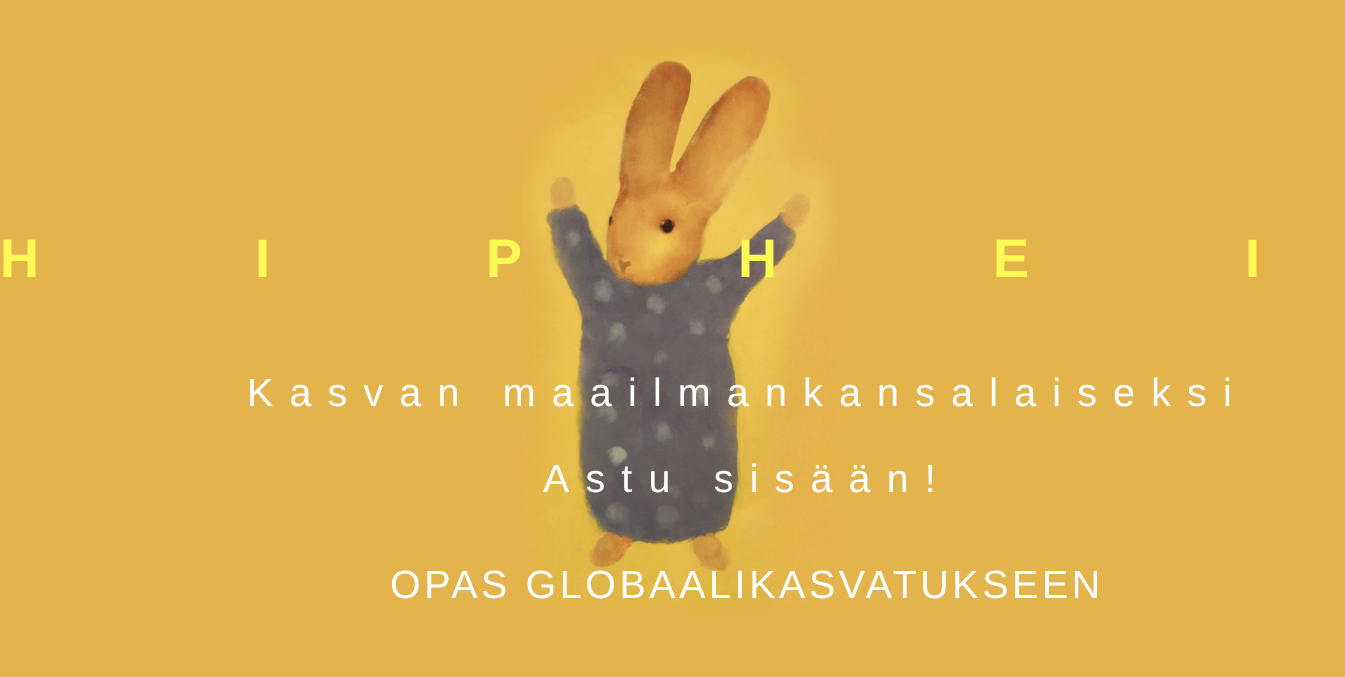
<svg xmlns="http://www.w3.org/2000/svg" xmlns:xlink="http://www.w3.org/1999/xlink" width="1345" height="677" viewBox="0 0 1345 677">
<style>
.cls-1{font:bold 54px Liberation Sans;letter-spacing:216px;fill:#fff956}
.cls-2{font:39.4px Liberation Sans;letter-spacing:16.2px;fill:#ffffff}
.cls-3{font:39.4px Liberation Sans;letter-spacing:3.6px;fill:#ffffff}
</style>
<rect width="100%" height="100%" fill="#e3b34c"/>
<image xlink:href="image0.png" x="522" y="48" width="316" height="567"/>
<text class="cls-1" x="0" y="277">HIPHEI</text>
<text class="cls-2" x="247" y="406">Kasvan maailmankansalaiseksi</text>
<text class="cls-2" x="543" y="492">Astu sisään!</text>
<text class="cls-3" x="390" y="598">OPAS GLOBAALIKASVATUKSEEN</text>
</svg>
